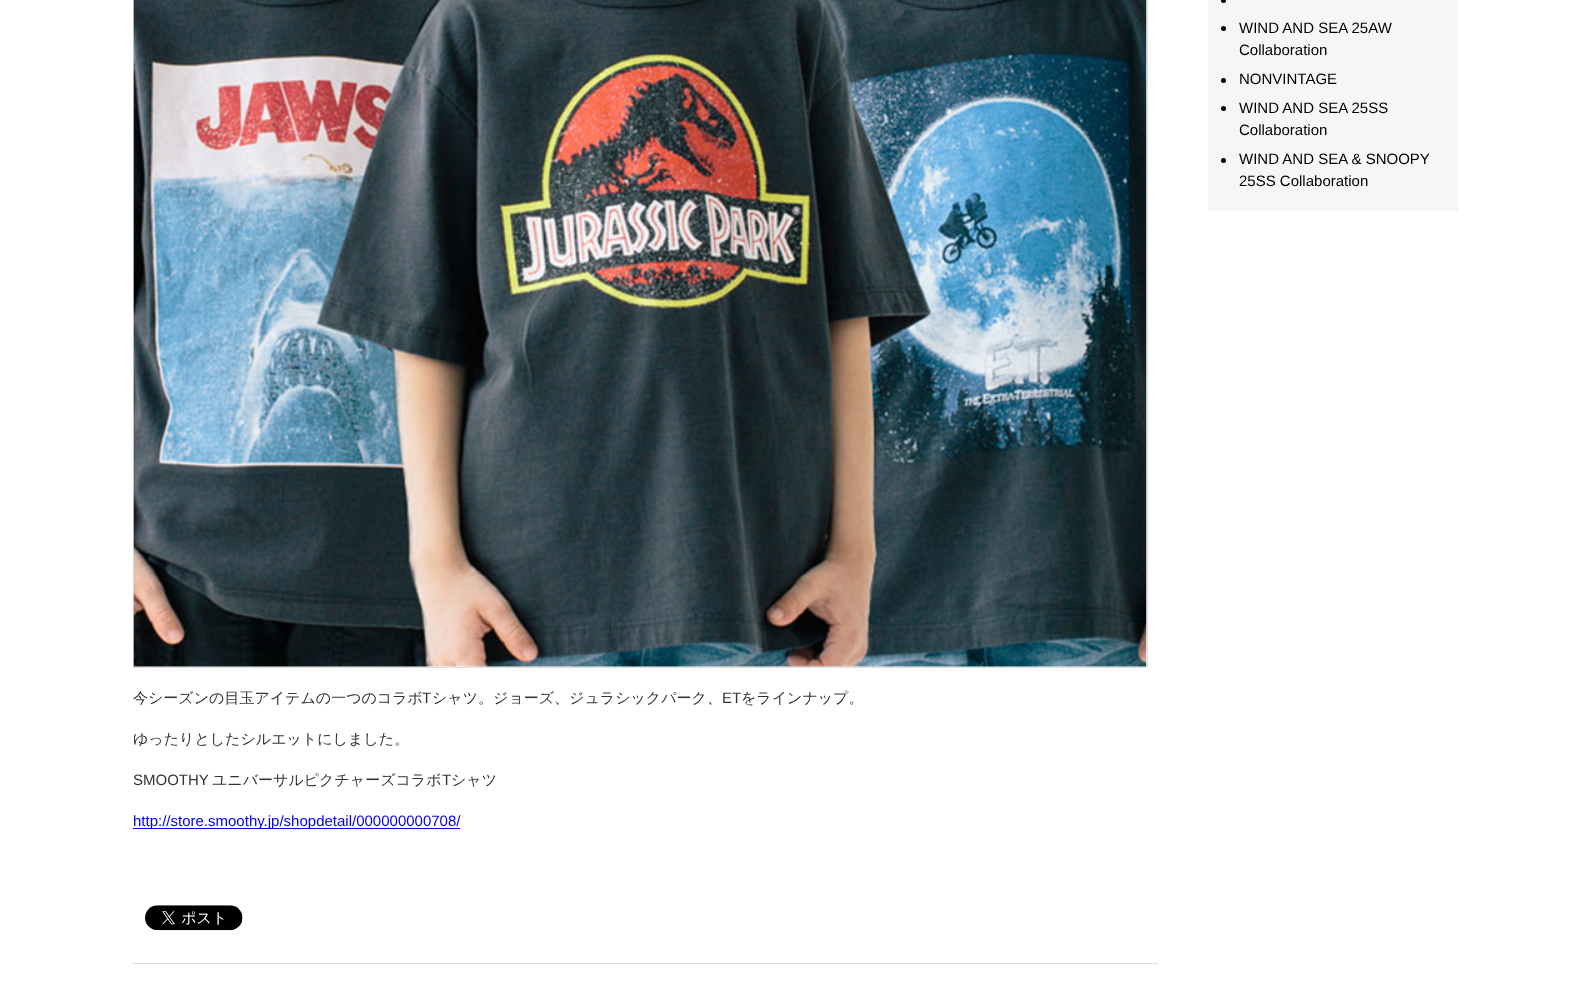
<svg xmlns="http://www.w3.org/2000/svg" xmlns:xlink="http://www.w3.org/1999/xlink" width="1589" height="985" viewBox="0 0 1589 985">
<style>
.cls-1{font:15px Liberation Sans;fill:#000000}
.cls-2{font:500 15px WenQuanYi Zen Hei;fill:#333333}
.cls-3{font:15px Liberation Sans;fill:#333333}
.cls-4{font:15px Liberation Sans;fill:#0000ee}
</style>
<rect width="100%" height="100%" fill="#ffffff"/>
<rect fill="#f6f6f6" x="1208" y="0" width="250" height="211"/>
<circle fill="#000000" cx="1223.5" cy="0.5" r="2.5"/>
<circle fill="#000000" cx="1223.5" cy="28.5" r="2.5"/>
<circle fill="#000000" cx="1223.5" cy="80.5" r="2.5"/>
<circle fill="#000000" cx="1223.5" cy="108.5" r="2.5"/>
<circle fill="#000000" cx="1223.5" cy="160.5" r="2.5"/>
<rect fill="none" stroke="#dddddd" x="133.5" y="-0.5" width="1014" height="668"/>
<image xlink:href="image0.png" x="133" y="0" width="1014" height="667"/>
<rect fill="#0000ee" x="133" y="828" width="327" height="1"/>
<image xlink:href="image1.png" x="145" y="905" width="98" height="26"/>
<rect fill="#dddddd" x="133" y="963" width="1025" height="1"/>
<text class="cls-1"><tspan x="1239" y="33">WIND AND SEA 25AW</tspan><tspan x="1239" y="55">Collaboration</tspan><tspan x="1239" y="84">NONVINTAGE</tspan><tspan x="1239" y="113">WIND AND SEA 25SS</tspan><tspan x="1239" y="135">Collaboration</tspan><tspan x="1239" y="164">WIND AND SEA &amp; SNOOPY</tspan><tspan x="1239" y="186">25SS Collaboration</tspan></text>
<text class="cls-2" x="133" y="703">今シーズンの目玉アイテムの一つのコラボ</text>
<text class="cls-3" x="422" y="703">T</text>
<text class="cls-2" x="432" y="703">シャツ。ジョーズ、ジュラシックパーク、</text>
<text class="cls-3" x="722" y="703">ET</text>
<text class="cls-2" x="741" y="703">をラインナップ。</text>
<text class="cls-2" x="133" y="744">ゆったりとしたシルエットにしました。</text>
<text class="cls-3" x="133" y="785">SMOOTHY</text>
<text class="cls-2" x="212" y="785">ユニバーサルピクチャーズコラボ</text>
<text class="cls-3" x="442" y="785">T</text>
<text class="cls-2" x="451" y="785">シャツ</text>
<text class="cls-4" x="133" y="826">http://store.smoothy.jp/shopdetail/000000000708/</text>
</svg>
